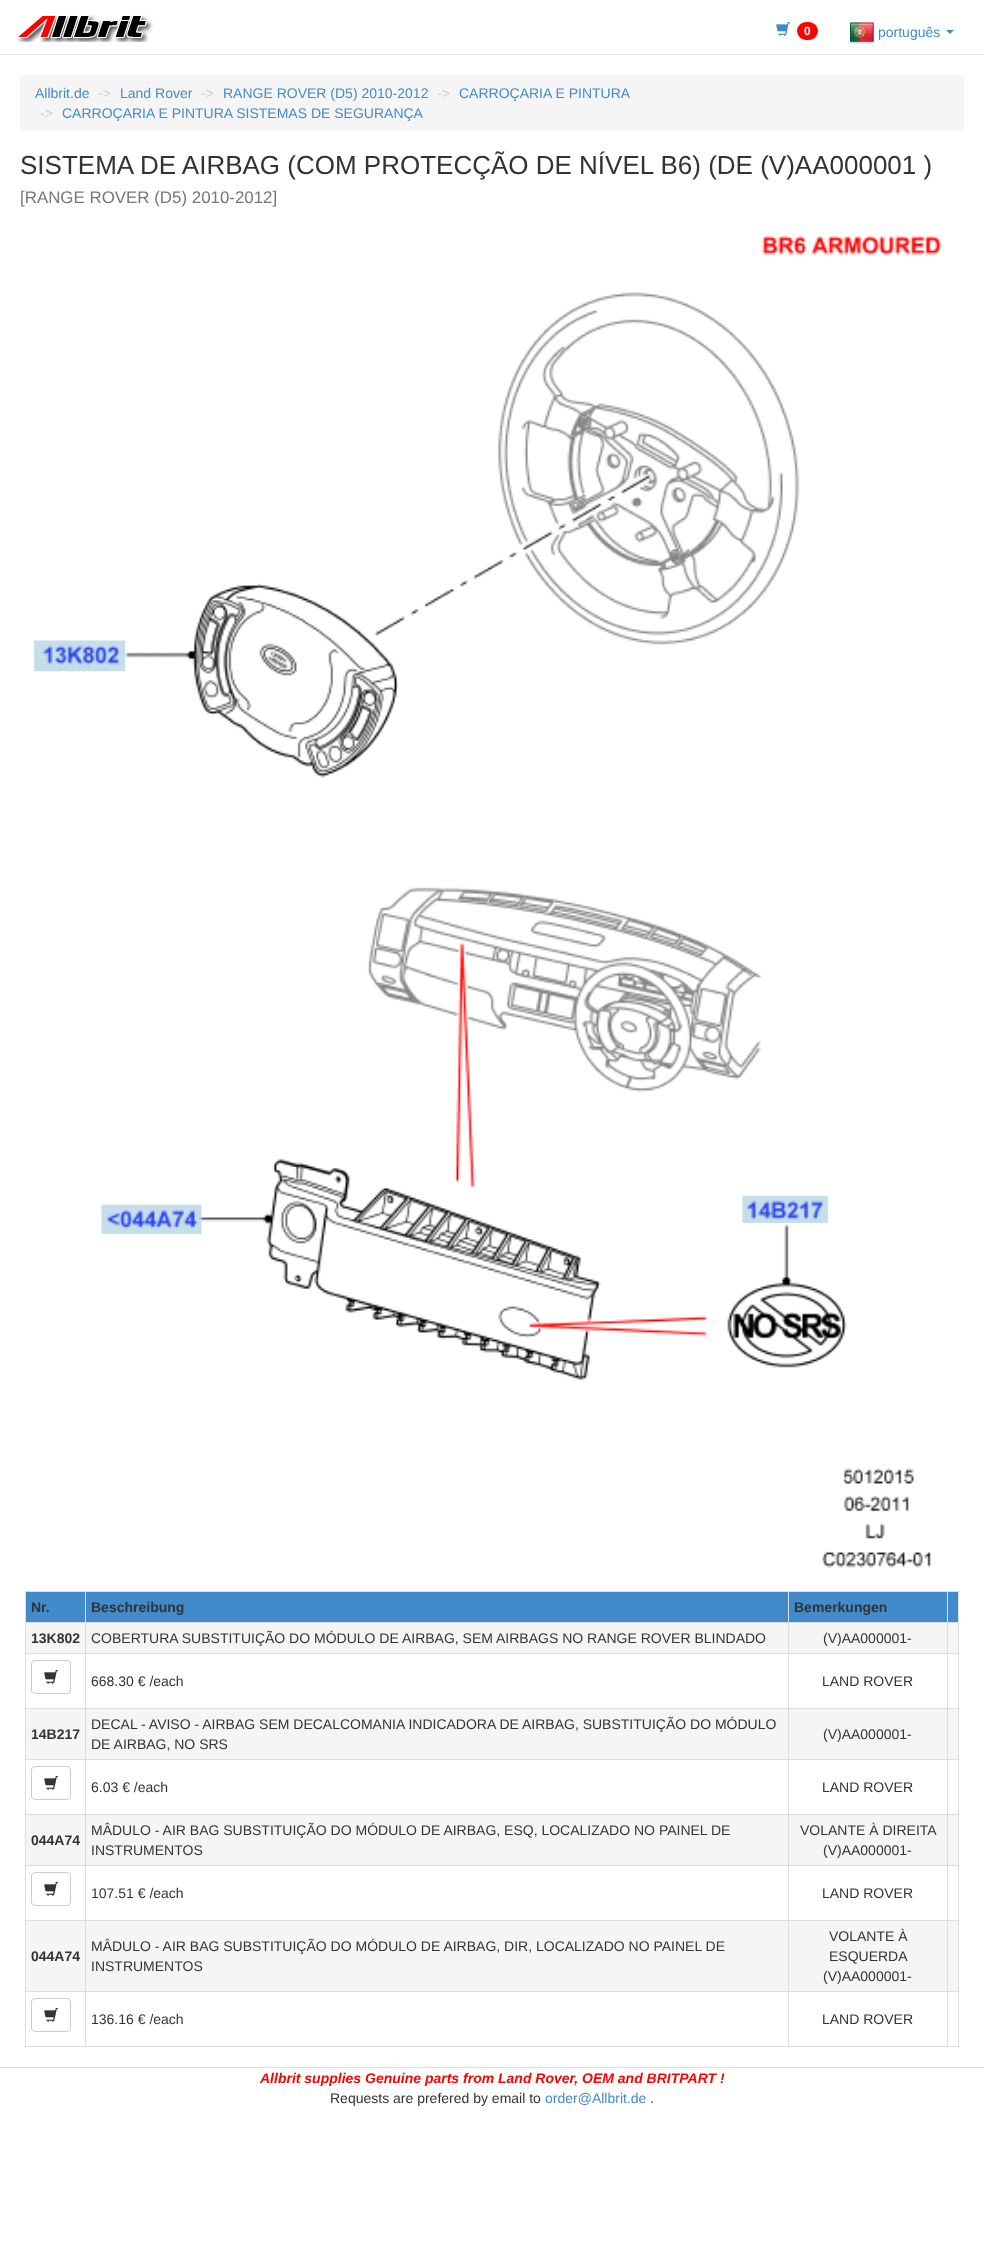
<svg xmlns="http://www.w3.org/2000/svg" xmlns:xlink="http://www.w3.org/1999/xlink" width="984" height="2254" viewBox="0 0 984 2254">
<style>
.cls-1{font:bold 12px Liberation Sans;fill:#ffffff}
.cls-2{font:14px Liberation Sans;fill:#428bca}
.cls-3{font:14px Liberation Sans;fill:#cccccc}
.cls-4{font:26px Liberation Sans;fill:#333333}
.cls-5{font:16.9px Liberation Sans;fill:#777777}
.cls-6{font:bold 14px Liberation Sans;fill:#333333}
.cls-7{font:14px Liberation Sans;fill:#333333}
.cls-8{font:italic bold 14px Liberation Sans;fill:#ff0000}
</style>
<rect width="100%" height="100%" fill="#ffffff"/>
<rect fill="#e7e7e7" x="0" y="54" width="984" height="1"/>
<image xlink:href="image0.png" x="17" y="15" width="136" height="27"/>
<image xlink:href="image1.png" x="776" y="22" width="14" height="14"/>
<rect fill="#ff0000" x="797" y="22" width="21" height="18" rx="9"/>
<image xlink:href="image2.png" x="850" y="22" width="24" height="22"/>
<path fill="#428bca" d="M946 30H954L950 34Z"/>
<rect fill="#f5f5f5" x="20" y="75" width="944" height="56" rx="4"/>
<image xlink:href="image3.png" x="34" y="235" width="908" height="1333"/>
<rect fill="#dddddd" x="25" y="1591" width="934" height="1"/>
<rect fill="#dddddd" x="958" y="1591" width="1" height="456"/>
<rect fill="#dddddd" x="25" y="2046" width="934" height="1"/>
<rect fill="#dddddd" x="25" y="1591" width="1" height="456"/>
<rect fill="#428bca" x="26" y="1592" width="932" height="30"/>
<rect fill="#dddddd" x="947" y="1622" width="12" height="1"/>
<rect fill="#dddddd" x="947" y="1653" width="12" height="1"/>
<rect fill="#dddddd" x="947" y="1708" width="12" height="1"/>
<rect fill="#dddddd" x="947" y="1759" width="12" height="1"/>
<rect fill="#dddddd" x="947" y="1814" width="12" height="1"/>
<rect fill="#dddddd" x="947" y="1865" width="12" height="1"/>
<rect fill="#dddddd" x="947" y="1920" width="12" height="1"/>
<rect fill="#dddddd" x="947" y="1991" width="12" height="1"/>
<rect fill="#dddddd" x="947" y="1991" width="1" height="56"/>
<rect fill="#dddddd" x="788" y="1991" width="160" height="1"/>
<rect fill="#dddddd" x="947" y="1920" width="1" height="72"/>
<rect fill="#dddddd" x="788" y="1920" width="160" height="1"/>
<rect fill="#dddddd" x="947" y="1865" width="1" height="56"/>
<rect fill="#dddddd" x="788" y="1865" width="160" height="1"/>
<rect fill="#dddddd" x="947" y="1814" width="1" height="52"/>
<rect fill="#dddddd" x="788" y="1814" width="160" height="1"/>
<rect fill="#dddddd" x="947" y="1759" width="1" height="56"/>
<rect fill="#dddddd" x="788" y="1759" width="160" height="1"/>
<rect fill="#dddddd" x="947" y="1708" width="1" height="52"/>
<rect fill="#dddddd" x="788" y="1708" width="160" height="1"/>
<rect fill="#dddddd" x="947" y="1653" width="1" height="56"/>
<rect fill="#dddddd" x="788" y="1653" width="160" height="1"/>
<rect fill="#dddddd" x="947" y="1622" width="1" height="32"/>
<rect fill="#dddddd" x="788" y="1622" width="160" height="1"/>
<rect fill="#dddddd" x="788" y="1991" width="1" height="56"/>
<rect fill="#dddddd" x="85" y="1991" width="704" height="1"/>
<rect fill="#dddddd" x="788" y="1920" width="1" height="72"/>
<rect fill="#dddddd" x="85" y="1920" width="704" height="1"/>
<rect fill="#dddddd" x="788" y="1865" width="1" height="56"/>
<rect fill="#dddddd" x="85" y="1865" width="704" height="1"/>
<rect fill="#dddddd" x="788" y="1814" width="1" height="52"/>
<rect fill="#dddddd" x="85" y="1814" width="704" height="1"/>
<rect fill="#dddddd" x="788" y="1759" width="1" height="56"/>
<rect fill="#dddddd" x="85" y="1759" width="704" height="1"/>
<rect fill="#dddddd" x="788" y="1708" width="1" height="52"/>
<rect fill="#dddddd" x="85" y="1708" width="704" height="1"/>
<rect fill="#dddddd" x="788" y="1653" width="1" height="56"/>
<rect fill="#dddddd" x="85" y="1653" width="704" height="1"/>
<rect fill="#dddddd" x="788" y="1622" width="1" height="32"/>
<rect fill="#dddddd" x="85" y="1622" width="704" height="1"/>
<rect fill="#dddddd" x="85" y="1991" width="1" height="56"/>
<rect fill="#dddddd" x="25" y="1991" width="61" height="1"/>
<rect fill="#dddddd" x="85" y="1920" width="1" height="72"/>
<rect fill="#dddddd" x="25" y="1920" width="61" height="1"/>
<rect fill="#dddddd" x="85" y="1865" width="1" height="56"/>
<rect fill="#dddddd" x="25" y="1865" width="61" height="1"/>
<rect fill="#dddddd" x="85" y="1814" width="1" height="52"/>
<rect fill="#dddddd" x="25" y="1814" width="61" height="1"/>
<rect fill="#dddddd" x="85" y="1759" width="1" height="56"/>
<rect fill="#dddddd" x="25" y="1759" width="61" height="1"/>
<rect fill="#dddddd" x="85" y="1708" width="1" height="52"/>
<rect fill="#dddddd" x="25" y="1708" width="61" height="1"/>
<rect fill="#dddddd" x="85" y="1653" width="1" height="56"/>
<rect fill="#dddddd" x="25" y="1653" width="61" height="1"/>
<rect fill="#dddddd" x="85" y="1622" width="1" height="32"/>
<rect fill="#dddddd" x="25" y="1622" width="61" height="1"/>
<rect fill="#dddddd" x="85" y="1591" width="1" height="32"/>
<rect fill="#dddddd" x="947" y="1591" width="1" height="32"/>
<rect fill="#dddddd" x="788" y="1591" width="1" height="32"/>
<rect fill="#f5f5f5" x="26" y="1623" width="59" height="30"/>
<rect fill="#f5f5f5" x="86" y="1623" width="702" height="30"/>
<rect fill="#f5f5f5" x="789" y="1623" width="158" height="30"/>
<rect fill="#f5f5f5" x="948" y="1623" width="10" height="30"/>
<rect fill="none" stroke="#cccccc" x="31.5" y="1660.5" width="39" height="33" rx="3.5"/>
<image xlink:href="image4.png" x="44" y="1670" width="14" height="14"/>
<rect fill="#f5f5f5" x="26" y="1709" width="59" height="50"/>
<rect fill="#f5f5f5" x="86" y="1709" width="702" height="50"/>
<rect fill="#f5f5f5" x="789" y="1709" width="158" height="50"/>
<rect fill="#f5f5f5" x="948" y="1709" width="10" height="50"/>
<rect fill="none" stroke="#cccccc" x="31.5" y="1766.5" width="39" height="33" rx="3.5"/>
<image xlink:href="image4.png" x="44" y="1776" width="14" height="14"/>
<rect fill="#f5f5f5" x="26" y="1815" width="59" height="50"/>
<rect fill="#f5f5f5" x="86" y="1815" width="702" height="50"/>
<rect fill="#f5f5f5" x="789" y="1815" width="158" height="50"/>
<rect fill="#f5f5f5" x="948" y="1815" width="10" height="50"/>
<rect fill="none" stroke="#cccccc" x="31.5" y="1872.5" width="39" height="33" rx="3.5"/>
<image xlink:href="image4.png" x="44" y="1882" width="14" height="14"/>
<rect fill="#f5f5f5" x="26" y="1921" width="59" height="70"/>
<rect fill="#f5f5f5" x="86" y="1921" width="702" height="70"/>
<rect fill="#f5f5f5" x="789" y="1921" width="158" height="70"/>
<rect fill="#f5f5f5" x="948" y="1921" width="10" height="70"/>
<rect fill="none" stroke="#cccccc" x="31.5" y="1998.5" width="39" height="33" rx="3.5"/>
<image xlink:href="image4.png" x="44" y="2008" width="14" height="14"/>
<rect fill="#dddddd" x="0" y="2067" width="984" height="1"/>
<text class="cls-1" x="804" y="35">0</text>
<text class="cls-2" x="878" y="37">português</text>
<text class="cls-2" x="35" y="98">Allbrit.de</text>
<text class="cls-3" x="98" y="98">-&gt;</text>
<text class="cls-2" x="120" y="98">Land Rover</text>
<text class="cls-3" x="201" y="98">-&gt;</text>
<text class="cls-2" x="223" y="98">RANGE ROVER (D5) 2010-2012</text>
<text class="cls-3" x="437" y="98">-&gt;</text>
<text class="cls-2" x="459" y="98">CARROÇARIA E PINTURA</text>
<text class="cls-3" x="40" y="118">-&gt;</text>
<text class="cls-2" x="62" y="118">CARROÇARIA E PINTURA SISTEMAS DE SEGURANÇA</text>
<text class="cls-4" x="20" y="174">SISTEMA DE AIRBAG (COM PROTECÇÃO DE NÍVEL B6) (DE (V)AA000001 )</text>
<text class="cls-5" x="20" y="203">[RANGE ROVER (D5) 2010-2012]</text>
<text class="cls-6" x="31" y="1612">Nr.</text>
<text class="cls-6" x="91" y="1612">Beschreibung</text>
<text class="cls-6" x="794" y="1612">Bemerkungen</text>
<text class="cls-6" x="31" y="1643">13K802</text>
<text class="cls-7" x="91" y="1643">COBERTURA SUBSTITUIÇÃO DO MÓDULO DE AIRBAG, SEM AIRBAGS NO RANGE ROVER BLINDADO</text>
<text class="cls-7" x="823" y="1643">(V)AA000001-</text>
<text class="cls-7" x="91" y="1686">668.30 € /each</text>
<text class="cls-7" x="822" y="1686">LAND ROVER</text>
<text class="cls-6" x="31" y="1739">14B217</text>
<text class="cls-7"><tspan x="91" y="1729">DECAL - AVISO - AIRBAG SEM DECALCOMANIA INDICADORA DE AIRBAG, SUBSTITUIÇÃO DO MÓDULO</tspan><tspan x="91" y="1749">DE AIRBAG, NO SRS</tspan></text>
<text class="cls-7" x="823" y="1739">(V)AA000001-</text>
<text class="cls-7" x="91" y="1792">6.03 € /each</text>
<text class="cls-7" x="822" y="1792">LAND ROVER</text>
<text class="cls-6" x="31" y="1845">044A74</text>
<text class="cls-7"><tspan x="91" y="1835">MÂDULO - AIR BAG SUBSTITUIÇÃO DO MÓDULO DE AIRBAG, ESQ, LOCALIZADO NO PAINEL DE</tspan><tspan x="91" y="1855">INSTRUMENTOS</tspan></text>
<text class="cls-7" x="800" y="1835">VOLANTE À DIREITA</text>
<text class="cls-7" x="823" y="1855">(V)AA000001-</text>
<text class="cls-7" x="91" y="1898">107.51 € /each</text>
<text class="cls-7" x="822" y="1898">LAND ROVER</text>
<text class="cls-6" x="31" y="1961">044A74</text>
<text class="cls-7"><tspan x="91" y="1951">MÂDULO - AIR BAG SUBSTITUIÇÃO DO MÓDULO DE AIRBAG, DIR, LOCALIZADO NO PAINEL DE</tspan><tspan x="91" y="1971">INSTRUMENTOS</tspan></text>
<text class="cls-7"><tspan x="829" y="1941">VOLANTE À</tspan><tspan x="829" y="1961">ESQUERDA</tspan></text>
<text class="cls-7" x="823" y="1981">(V)AA000001-</text>
<text class="cls-7" x="91" y="2024">136.16 € /each</text>
<text class="cls-7" x="822" y="2024">LAND ROVER</text>
<text class="cls-8" x="260" y="2083">Allbrit supplies Genuine parts from Land Rover, OEM and BRITPART !</text>
<text class="cls-7" x="330" y="2103">Requests are prefered by email to</text>
<text class="cls-2" x="545" y="2103">order@Allbrit.de</text>
<text class="cls-7" x="650" y="2103">.</text>
</svg>
